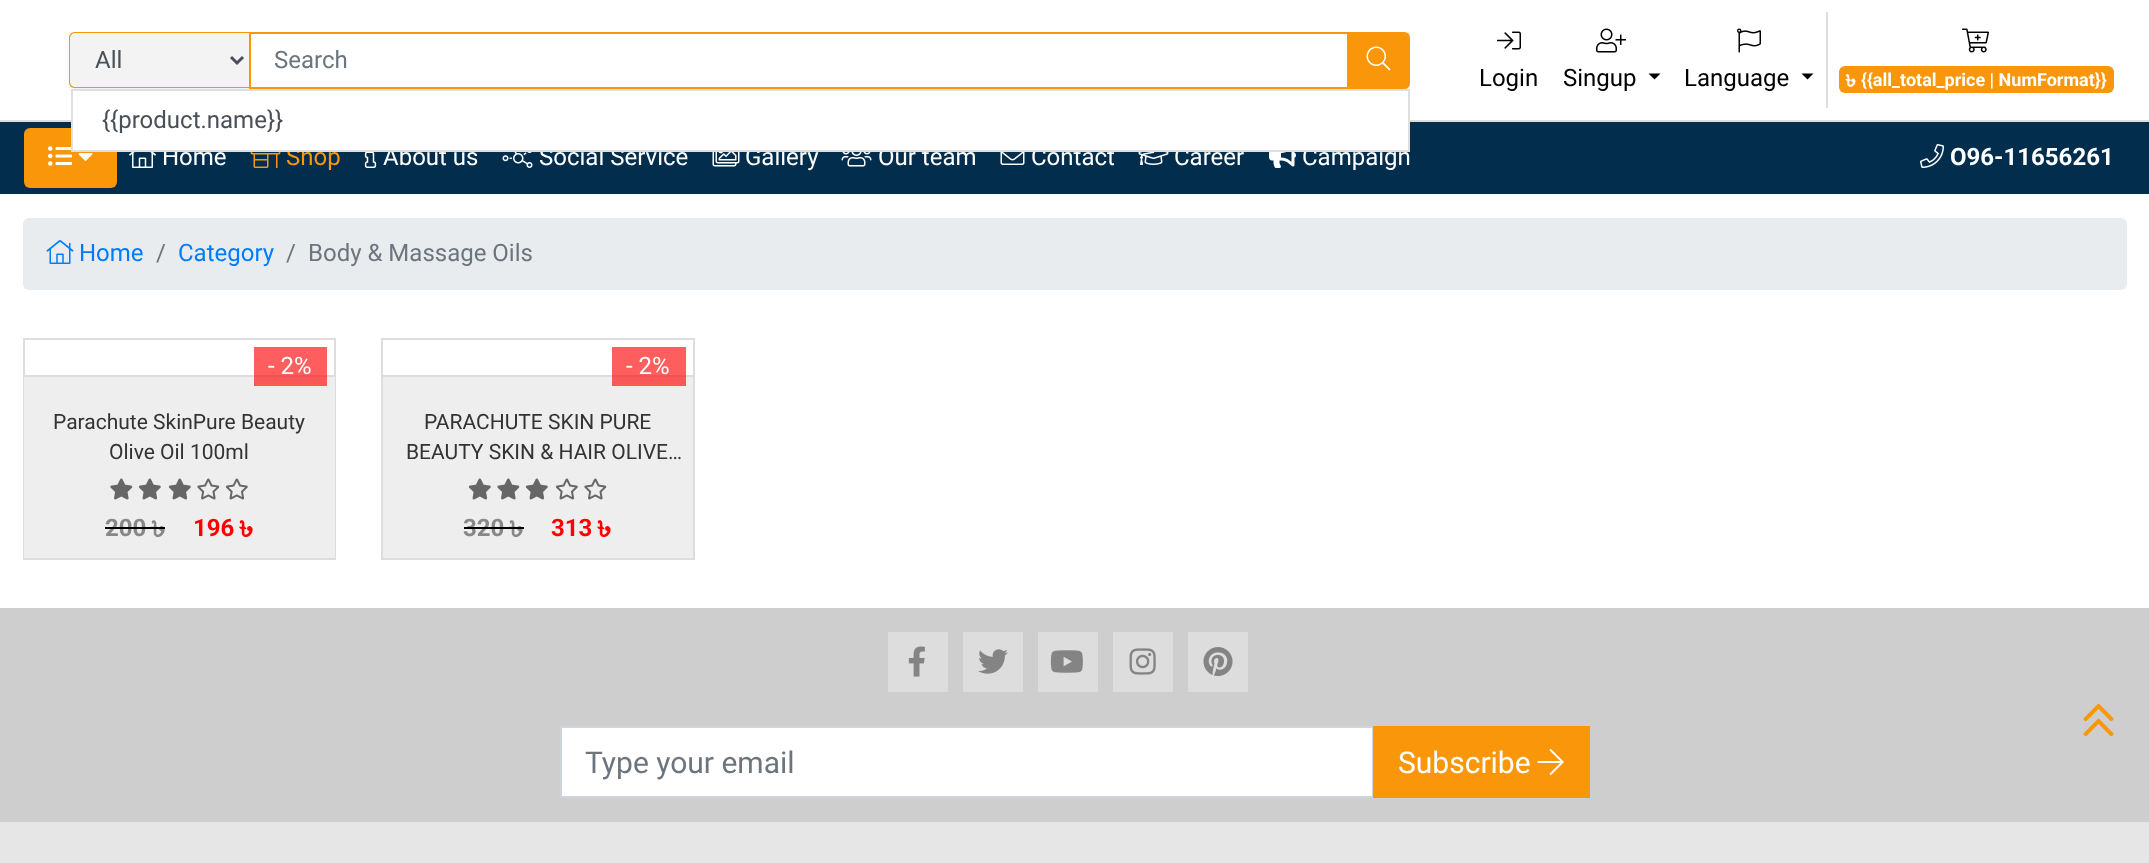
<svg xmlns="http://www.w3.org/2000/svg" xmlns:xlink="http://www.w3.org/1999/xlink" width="2149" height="863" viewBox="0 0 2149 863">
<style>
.cls-1{font:24px Roboto;fill:#495057}
.cls-2{font:24px Roboto;fill:#6c757d}
.cls-3{font:24px Roboto;fill:#000000}
.cls-4{font:bold 18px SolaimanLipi;fill:#ffffff}
.cls-5{font:bold 18px Roboto;fill:#ffffff}
.cls-6{font:24px Roboto;fill:#ffffff}
.cls-7{font:24px Roboto;fill:#fa960a}
.cls-8{font:bold 24px Roboto;fill:#ffffff}
.cls-9{font:24px Roboto;fill:#007bff}
.cls-10{font:21px Roboto;fill:#333333}
.cls-11{font:bold 24px Roboto;fill:#888888}
.cls-12{font:bold 24px SolaimanLipi;fill:#888888}
.cls-13{font:bold 24px Roboto;fill:#ff0000}
.cls-14{font:bold 24px SolaimanLipi;fill:#ff0000}
.cls-15{font:30px Roboto;fill:#6c757d}
.cls-16{font:30px Roboto;fill:#ffffff}
</style>
<rect width="100%" height="100%" fill="#ffffff"/>
<rect fill="#ff5e5e" x="612" y="347" width="74" height="28"/>
<rect fill="#ff5e5e" x="254" y="347" width="73" height="28"/>
<rect fill="#dddddd" x="0" y="120" width="2149" height="2"/>
<path fill="#f3f3f3" d="M75 32H249V89H75C71.5 89 69 86.5 69 83V38C69 34.5 71.5 32 75 32Z"/>
<path fill="#fa960a" fill-rule="evenodd" d="M75 32H249V88H75C72 88 69 86 69 82V38C69 34 72 32 75 32ZM75 33H249V87H75C73 87 70 85 70 82V38C70 35 73 33 75 33Z"/>
<path fill="none" stroke="#495057" stroke-width="3" d="M231 57L237 63L243 57"/>
<rect fill="none" stroke="#fa960a" stroke-width="2" x="250" y="33" width="1098" height="55"/>
<path fill="#fa960a" stroke="#fa960a" stroke-width="2" d="M1348 33H1404C1407 33 1409 35 1409 38V83C1409 86 1407 88 1404 88H1348Z"/>
<image xlink:href="image0.png" x="1366" y="46" width="25" height="25"/>
<image xlink:href="image1.png" x="1497" y="31" width="24" height="19"/>
<image xlink:href="image2.png" x="1596" y="28" width="30" height="25"/>
<path fill="#000000" d="M1648.5 73.5H1660.5L1654.5 79.5Z"/>
<image xlink:href="image3.png" x="1737" y="28" width="24" height="25"/>
<path fill="#000000" d="M1801.5 73.5H1813.5L1807.5 79.5Z"/>
<rect fill="#dddddd" x="1826" y="12" width="2" height="96"/>
<image xlink:href="image4.png" x="1962" y="28" width="27" height="25"/>
<rect fill="#fa960a" x="1839" y="66" width="275" height="27" rx="6"/>
<rect fill="#022d4d" x="0" y="122" width="2149" height="72"/>
<rect fill="#fa960a" x="24" y="128" width="93" height="60" rx="6"/>
<image xlink:href="image5.png" x="48" y="146" width="24" height="20"/>
<image xlink:href="image6.png" x="78" y="153" width="15" height="8"/>
<image xlink:href="image7.png" x="129" y="152" width="27" height="16"/>
<image xlink:href="image8.png" x="250" y="152" width="31" height="16"/>
<image xlink:href="image9.png" x="364" y="152" width="13" height="16"/>
<image xlink:href="image10.png" x="502" y="152" width="31" height="16"/>
<image xlink:href="image11.png" x="712" y="152" width="28" height="15"/>
<image xlink:href="image12.png" x="841" y="152" width="31" height="15"/>
<image xlink:href="image13.png" x="1000" y="152" width="25" height="13"/>
<image xlink:href="image14.png" x="1138" y="152" width="31" height="13"/>
<image xlink:href="image15.png" x="1269" y="152" width="27" height="16"/>
<image xlink:href="image16.png" x="1920" y="144" width="24" height="24"/>
<rect fill="#e9ecef" x="23" y="218" width="2104" height="72" rx="6"/>
<image xlink:href="image17.png" x="46" y="240" width="28" height="24"/>
<rect fill="none" stroke="#dddddd" stroke-width="2" x="24" y="339" width="311" height="220"/>
<rect fill="#eeeeee" x="24" y="377" width="311" height="181"/>
<rect fill="#f95858" x="254" y="377" width="73" height="9"/>
<rect fill="#dddddd" x="24" y="375" width="311" height="2"/>
<rect fill="#f25252" x="254" y="375" width="73" height="2"/>
<image xlink:href="image18.png" x="110" y="478" width="23" height="22"/>
<image xlink:href="image19.png" x="138" y="478" width="23" height="22"/>
<image xlink:href="image19.png" x="168" y="478" width="23" height="22"/>
<image xlink:href="image20.png" x="197" y="478" width="23" height="22"/>
<image xlink:href="image21.png" x="225" y="478" width="23" height="22"/>
<rect fill="none" stroke="#dddddd" stroke-width="2" x="382" y="339" width="312" height="220"/>
<rect fill="#eeeeee" x="383" y="377" width="310" height="181"/>
<rect fill="#f95858" x="612" y="377" width="74" height="9"/>
<rect fill="#dddddd" x="383" y="375" width="310" height="2"/>
<rect fill="#f25252" x="612" y="375" width="74" height="2"/>
<image xlink:href="image19.png" x="468" y="478" width="23" height="22"/>
<image xlink:href="image18.png" x="497" y="478" width="23" height="22"/>
<image xlink:href="image19.png" x="525" y="478" width="23" height="22"/>
<image xlink:href="image21.png" x="555" y="478" width="23" height="22"/>
<image xlink:href="image20.png" x="584" y="478" width="23" height="22"/>
<rect fill="#cecece" x="0" y="608" width="2149" height="214"/>
<image xlink:href="image22.png" x="2083" y="703" width="31" height="34"/>
<rect fill="#dddddd" x="888" y="632" width="60" height="60"/>
<image xlink:href="image23.png" x="908" y="646" width="17" height="31"/>
<rect fill="#dddddd" x="963" y="632" width="60" height="60"/>
<image xlink:href="image24.png" x="978" y="649" width="30" height="25"/>
<rect fill="#dddddd" x="1038" y="632" width="60" height="60"/>
<image xlink:href="image25.png" x="1050" y="650" width="33" height="23"/>
<rect fill="#dddddd" x="1113" y="632" width="60" height="60"/>
<image xlink:href="image26.png" x="1129" y="648" width="27" height="27"/>
<rect fill="#dddddd" x="1188" y="632" width="60" height="60"/>
<image xlink:href="image27.png" x="1203" y="647" width="30" height="29"/>
<rect fill="#ffffff" stroke="#ced4da" stroke-width="2" x="561" y="727" width="812" height="70"/>
<rect fill="#fa960a" x="1373" y="726" width="217" height="72"/>
<image xlink:href="image28.png" x="1537" y="749" width="27" height="26"/>
<rect fill="#e6e6e6" x="0" y="822" width="2149" height="41"/>
<text class="cls-1" x="95" y="68">All</text>
<text class="cls-2" x="274" y="68">Search</text>
<text class="cls-3" x="1479" y="86">Login</text>
<text class="cls-3" x="1563" y="86">Singup</text>
<text class="cls-3" x="1684" y="86">Language</text>
<text class="cls-4" x="1846" y="86">৳</text>
<text class="cls-5" x="1861" y="86">{{all_total_price | NumFormat}}</text>
<text class="cls-6" x="162" y="165">Home</text>
<text class="cls-7" x="286" y="165">Shop</text>
<rect fill="#ffffff" x="73" y="120" width="1335" height="30"/>
<text class="cls-6" x="383" y="165">About us</text>
<text class="cls-6" x="539" y="165">Social Service</text>
<text class="cls-6" x="745" y="165">Gallery</text>
<text class="cls-6" x="878" y="165">Our team</text>
<text class="cls-6" x="1031" y="165">Contact</text>
<text class="cls-6" x="1174" y="165">Career</text>
<text class="cls-6" x="1302" y="165">Campaign</text>
<rect fill="none" stroke="#dfdfdf" stroke-width="2" x="72" y="90" width="1337" height="61"/>
<text class="cls-1" x="102" y="128">{{product.name}}</text>
<text class="cls-8" x="1950" y="165">O96-11656261</text>
<text class="cls-9" x="79" y="261">Home</text>
<text class="cls-2" x="156" y="261">/</text>
<text class="cls-9" x="178" y="261">Category</text>
<text class="cls-2" x="286" y="261">/</text>
<text class="cls-2" x="308" y="261">Body &amp; Massage Oils</text>
<text class="cls-6" x="268" y="374">- 2%</text>
<text class="cls-10" x="53" y="429">Parachute SkinPure Beauty</text>
<text class="cls-10" x="109" y="459">Olive Oil 100ml</text>
<text class="cls-11" x="105" y="536">200</text>
<text class="cls-12" x="152" y="536">৳</text>
<rect fill="#000000" x="105" y="527" width="60" height="2"/>
<text class="cls-13" x="193" y="536">196</text>
<text class="cls-14" x="240" y="536">৳</text>
<text class="cls-6" x="626" y="374">- 2%</text>
<text class="cls-10" x="424" y="429">PARACHUTE SKIN PURE</text>
<text class="cls-10" x="406" y="459">BEAUTY SKIN &amp; HAIR OLIVE…</text>
<text class="cls-11" x="463" y="536">320</text>
<text class="cls-12" x="510" y="536">৳</text>
<rect fill="#000000" x="464" y="527" width="60" height="2"/>
<text class="cls-13" x="551" y="536">313</text>
<text class="cls-14" x="598" y="536">৳</text>
<text class="cls-15" x="585" y="773">Type your email</text>
<text class="cls-16" x="1398" y="773">Subscribe</text>
</svg>
